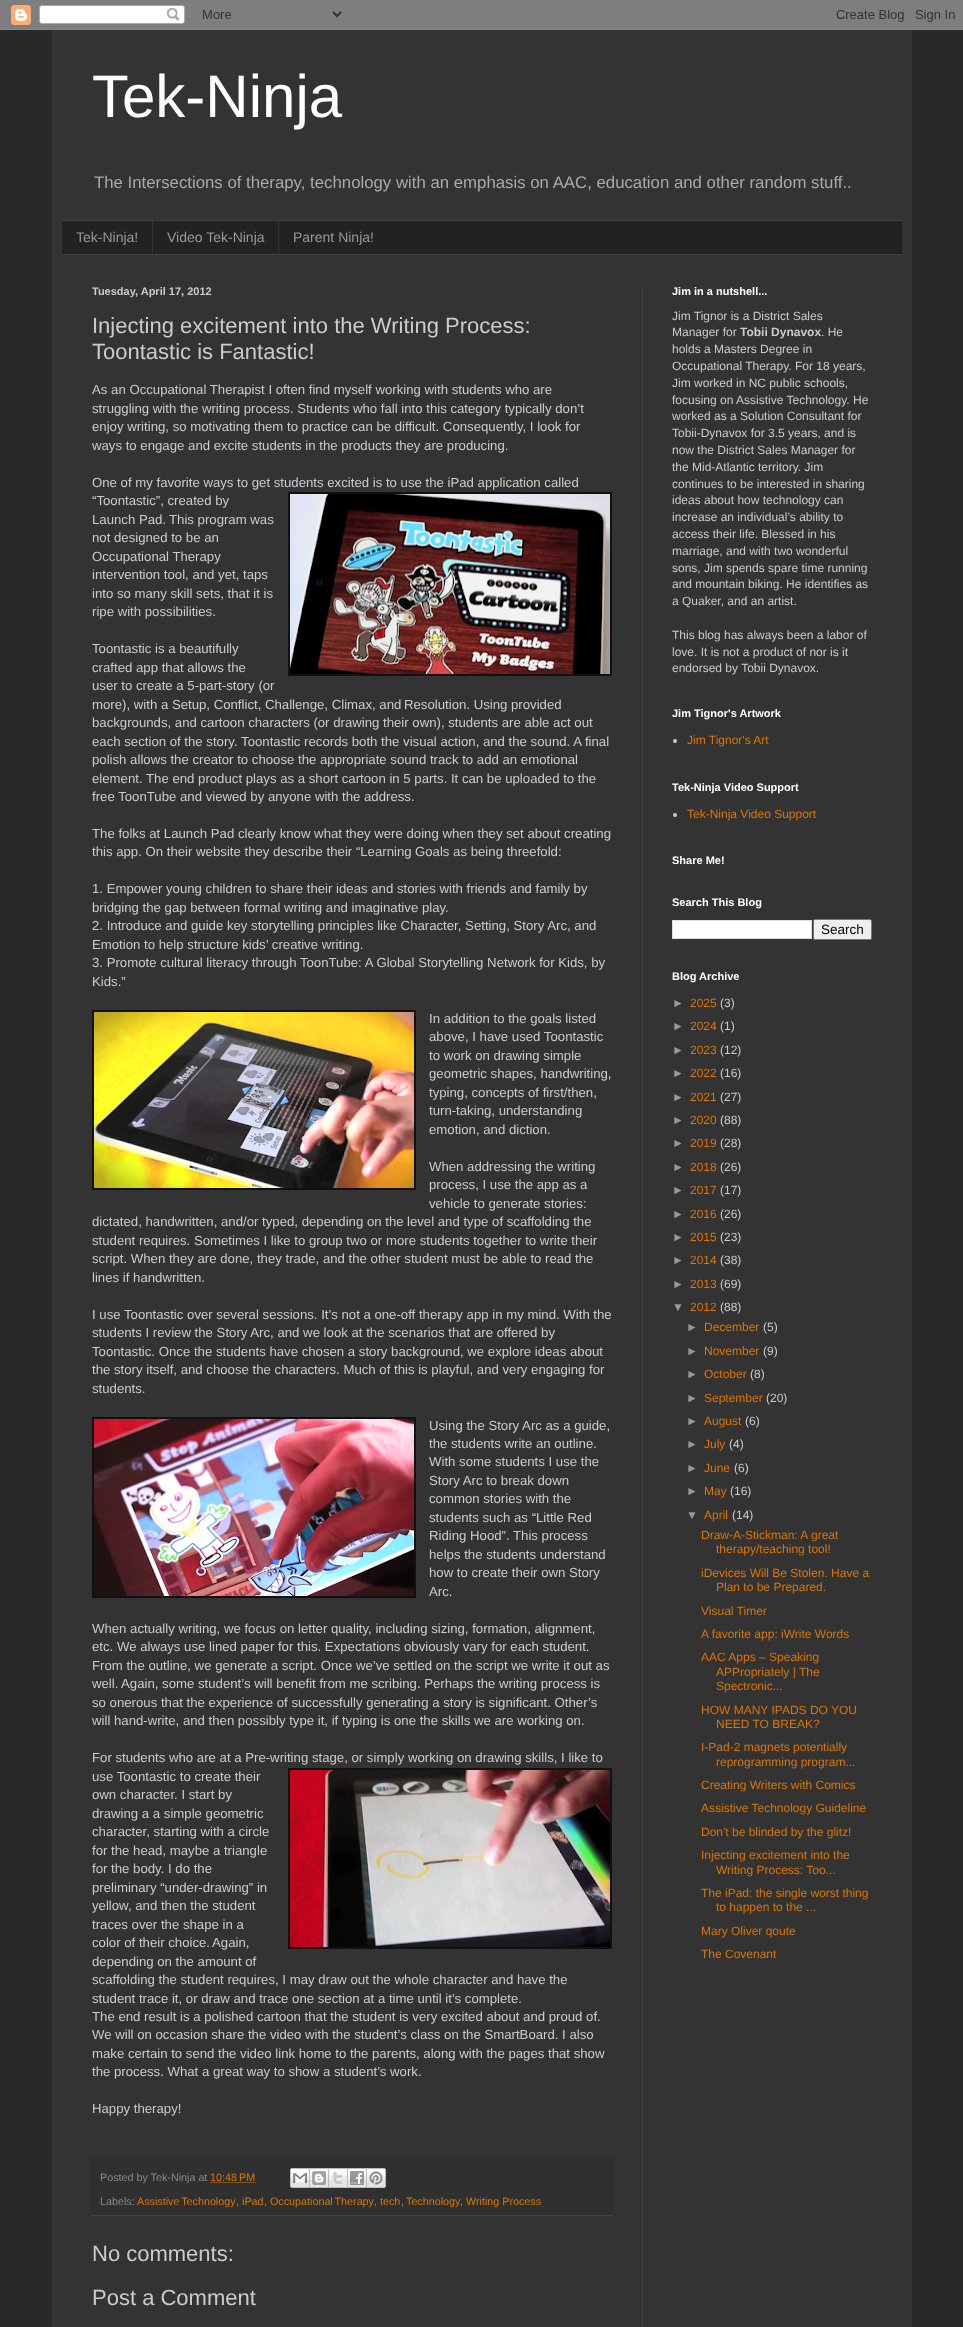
<svg xmlns="http://www.w3.org/2000/svg" xmlns:xlink="http://www.w3.org/1999/xlink" width="963" height="2327" viewBox="0 0 963 2327">
<style>
.cls-1{font:60px Liberation Sans;fill:#ffffff}
.cls-2{font:16.8px Liberation Sans;fill:#aaaaaa}
.cls-3{font:14px Liberation Sans;fill:#999999}
.cls-4{font:bold 11px Liberation Sans;fill:#cccccc}
.cls-5{font:22px Liberation Sans;fill:#cccccc}
.cls-6{font:13.2px Liberation Sans;fill:#cccccc}
.cls-7{font:10.75px Liberation Sans;fill:#888888}
.cls-8{font:10.75px Liberation Sans;fill:#dd7700}
.cls-9{font:bold 11px Liberation Sans;fill:#ffffff}
.cls-10{font:12px Liberation Sans;fill:#cccccc}
.cls-11{font:bold 12px Liberation Sans;fill:#cccccc}
.cls-12{font:12px Liberation Sans;fill:#dd7700}
.cls-13{font:13.5px Liberation Sans;fill:#000000}
.cls-14{font:12px Liberation Sans;fill:#999999}
</style>
<rect width="100%" height="100%" fill="#292929"/>
<image xlink:href="image0.png" x="0" y="0" width="963" height="30"/>
<rect fill="#333333" x="52" y="30" width="860" height="2297"/>
<rect fill="#222222" x="62" y="221" width="840" height="33"/>
<rect fill="#404040" x="62" y="220" width="840" height="1"/>
<rect fill="#404040" x="62" y="254" width="840" height="1"/>
<rect fill="#333333" x="152" y="221" width="1" height="33"/>
<rect fill="#333333" x="278" y="221" width="1" height="33"/>
<rect fill="#404040" x="642" y="285" width="1" height="2042"/>
<rect fill="#111111" x="288" y="492" width="324" height="184"/>
<image xlink:href="image1.png" x="290" y="494" width="320" height="180"/>
<rect fill="#111111" x="92" y="1010" width="324" height="180"/>
<image xlink:href="image2.png" x="94" y="1012" width="320" height="176"/>
<rect fill="#111111" x="92" y="1417" width="324" height="181"/>
<image xlink:href="image3.png" x="94" y="1419" width="320" height="177"/>
<rect fill="#111111" x="288" y="1768" width="324" height="181"/>
<image xlink:href="image4.png" x="290" y="1770" width="320" height="177"/>
<rect fill="#303030" x="90" y="2157" width="524" height="58"/>
<rect fill="#444444" x="90" y="2215" width="524" height="1"/>
<path fill="none" stroke="#dd7700" stroke-dasharray="1 1" d="M210.5 2182.5H256"/>
<image xlink:href="image5.png" x="290" y="2168" width="20" height="20"/>
<image xlink:href="image6.png" x="310" y="2168" width="19" height="20"/>
<image xlink:href="image7.png" x="329" y="2168" width="19" height="20"/>
<image xlink:href="image8.png" x="348" y="2168" width="19" height="20"/>
<image xlink:href="image9.png" x="367" y="2168" width="19" height="20"/>
<circle fill="#cccccc" cx="675" cy="741" r="2"/>
<circle fill="#cccccc" cx="675" cy="815" r="2"/>
<rect fill="#ffffff" stroke="#dddddd" x="672.5" y="920.5" width="139" height="18"/>
<rect fill="#efefef" stroke="#767676" x="813.5" y="919.5" width="58" height="20" rx="1.5"/>
<text class="cls-1" x="92" y="117">Tek-Ninja</text>
<text class="cls-2" x="94" y="188">The Intersections of therapy, technology with an emphasis on AAC, education and other random stuff..</text>
<text class="cls-3" x="76" y="242">Tek-Ninja!</text>
<text class="cls-3" x="167" y="242">Video Tek-Ninja</text>
<text class="cls-3" x="293" y="242">Parent Ninja!</text>
<text class="cls-4" x="92" y="295">Tuesday, April 17, 2012</text>
<text class="cls-5"><tspan x="92" y="333">Injecting excitement into the Writing Process:</tspan><tspan x="92" y="359">Toontastic is Fantastic!</tspan></text>
<text class="cls-6"><tspan x="92" y="394">As an Occupational Therapist I often find myself working with students who are</tspan><tspan x="92" y="413">struggling with the writing process. Students who fall into this category typically don’t</tspan><tspan x="92" y="431">enjoy writing, so motivating them to practice can be difficult. Consequently, I look for</tspan><tspan x="92" y="450">ways to engage and excite students in the products they are producing.</tspan></text>
<text class="cls-6"><tspan x="92" y="487">One of my favorite ways to get students excited is to use the iPad application called</tspan><tspan x="92" y="505">“Toontastic”, created by</tspan><tspan x="92" y="524">Launch Pad.</tspan></text>
<text class="cls-6" x="169" y="524">This program was</text>
<text class="cls-6"><tspan x="92" y="542">not designed to be an</tspan><tspan x="92" y="561">Occupational Therapy</tspan><tspan x="92" y="579">intervention tool, and yet, taps</tspan><tspan x="92" y="598">into so many skill sets, that it is</tspan><tspan x="92" y="616">ripe with possibilities.</tspan></text>
<text class="cls-6"><tspan x="92" y="653">Toontastic is a beautifully</tspan><tspan x="92" y="672">crafted app that allows the</tspan><tspan x="92" y="690">user to create a 5-part-story (or</tspan><tspan x="92" y="709">more), with a Setup, Conflict, Challenge, Climax, and</tspan></text>
<text class="cls-6" x="404" y="709">Resolution. Using provided</text>
<text class="cls-6"><tspan x="92" y="727">backgrounds, and cartoon characters (or drawing their own), students are able act out</tspan><tspan x="92" y="746">each section of the story. Toontastic records both the visual action, and the sound. A final</tspan><tspan x="92" y="764">polish allows the creator to choose the appropriate sound track to add an emotional</tspan><tspan x="92" y="783">element. The end product plays as a short cartoon in 5 parts. It can be uploaded to the</tspan><tspan x="92" y="801">free ToonTube and viewed by anyone with the address.</tspan></text>
<text class="cls-6"><tspan x="92" y="838">The folks at Launch Pad clearly know what they were doing when they set about creating</tspan><tspan x="92" y="856">this app. On their website they describe their “Learning</tspan></text>
<text class="cls-6" x="415" y="856">Goals as being threefold:</text>
<text class="cls-6"><tspan x="92" y="893">1. Empower young children to share their ideas and stories with friends and family by</tspan><tspan x="92" y="912">bridging the gap between formal writing and imaginative play.</tspan><tspan x="92" y="930">2. Introduce and guide key storytelling principles like Character, Setting, Story Arc, and</tspan><tspan x="92" y="949">Emotion to help structure kids’ creative writing.</tspan><tspan x="92" y="967">3. Promote cultural literacy through ToonTube: A Global Storytelling Network for Kids, by</tspan><tspan x="92" y="986">Kids.”</tspan></text>
<text class="cls-6"><tspan x="429" y="1023">In addition to the goals listed</tspan><tspan x="429" y="1041">above, I have used Toontastic</tspan><tspan x="429" y="1060">to work on drawing simple</tspan><tspan x="429" y="1078">geometric shapes, handwriting,</tspan><tspan x="429" y="1097">typing, concepts of first/then,</tspan><tspan x="429" y="1115">turn-taking, understanding</tspan><tspan x="429" y="1134">emotion, and diction.</tspan></text>
<text class="cls-6"><tspan x="429" y="1171">When addressing the writing</tspan><tspan x="429" y="1189">process, I use the app as a</tspan><tspan x="429" y="1208">vehicle to generate stories:</tspan></text>
<text class="cls-6" x="92" y="1226">dictated, handwritten, and/or typed, depending on the</text>
<text class="cls-6" x="407" y="1226">level and type of scaffolding the</text>
<text class="cls-6"><tspan x="92" y="1245">student requires. Sometimes I like to group two or more students together to write their</tspan><tspan x="92" y="1263">script. When they are done, they trade, and the other student must be able to read the</tspan><tspan x="92" y="1282">lines if handwritten.</tspan></text>
<text class="cls-6"><tspan x="92" y="1319">I use Toontastic over several sessions. It’s not a one-off therapy app in my mind. With the</tspan><tspan x="92" y="1337">students I review the Story Arc, and we look at the scenarios that are offered by</tspan><tspan x="92" y="1356">Toontastic. Once the students have chosen a story background, we explore ideas about</tspan><tspan x="92" y="1374">the story itself, and choose the characters. Much of this is playful, and very engaging for</tspan><tspan x="92" y="1393">students.</tspan></text>
<text class="cls-6"><tspan x="429" y="1430">Using the Story Arc as a guide,</tspan><tspan x="429" y="1448">the students write an outline.</tspan><tspan x="429" y="1466">With some students I use the</tspan><tspan x="429" y="1485">Story Arc to break down</tspan><tspan x="429" y="1503">common stories with the</tspan><tspan x="429" y="1522">students such as “Little Red</tspan><tspan x="429" y="1540">Riding Hood”.</tspan></text>
<text class="cls-6" x="513" y="1540">This process</text>
<text class="cls-6"><tspan x="429" y="1559">helps the students understand</tspan><tspan x="429" y="1577">how to create their own Story</tspan><tspan x="429" y="1596">Arc.</tspan></text>
<text class="cls-6"><tspan x="92" y="1633">When actually writing, we focus on letter quality, including sizing, formation, alignment,</tspan><tspan x="92" y="1651">etc. We always use lined paper for this. Expectations obviously vary for each student.</tspan><tspan x="92" y="1670">From the outline, we generate a script. Once we’ve settled on the script we write it out as</tspan><tspan x="92" y="1688">well.</tspan></text>
<text class="cls-6" x="121" y="1688">Again, some student’s will benefit from me scribing. Perhaps the writing process is</text>
<text class="cls-6"><tspan x="92" y="1707">so onerous that the experience of successfully generating a story is significant. Other’s</tspan><tspan x="92" y="1725">will hand-write, and then possibly type it, if typing is one the skills we are working on.</tspan></text>
<text class="cls-6"><tspan x="92" y="1762">For students who are at a Pre-writing stage, or simply working on drawing skills, I like to</tspan><tspan x="92" y="1781">use Toontastic to create their</tspan><tspan x="92" y="1799">own character. I start by</tspan><tspan x="92" y="1818">drawing a a simple geometric</tspan><tspan x="92" y="1836">character, starting with a circle</tspan><tspan x="92" y="1855">for the head, maybe a triangle</tspan><tspan x="92" y="1873">for the body. I do the</tspan><tspan x="92" y="1892">preliminary “under-drawing” in</tspan><tspan x="92" y="1910">yellow, and then the student</tspan><tspan x="92" y="1929">traces over the shape in a</tspan><tspan x="92" y="1947">color of their choice.</tspan></text>
<text class="cls-6" x="212" y="1947">Again,</text>
<text class="cls-6"><tspan x="92" y="1966">depending on the amount of</tspan><tspan x="92" y="1984">scaffolding the student requires, I may draw out the whole character and have the</tspan><tspan x="92" y="2003">student trace it, or draw and trace one section at a time until it’s complete.</tspan><tspan x="92" y="2021">The end result is a polished cartoon that the student is very excited about and proud of.</tspan><tspan x="92" y="2039">We will on occasion share the video with the student’s class on the SmartBoard. I also</tspan><tspan x="92" y="2058">make certain to send the video link home to the parents, along with the pages that show</tspan><tspan x="92" y="2076">the process. What a great way to show a student’s work.</tspan></text>
<text class="cls-6" x="92" y="2113">Happy therapy!</text>
<text class="cls-7" x="100" y="2181">Posted by Tek-Ninja at</text>
<text class="cls-8" x="210" y="2181">10:48 PM</text>
<text class="cls-7" x="100" y="2205">Labels:</text>
<text class="cls-8" x="137" y="2205" word-spacing="-1">Assistive Technology</text>
<text class="cls-8" x="242" y="2205">iPad</text>
<text class="cls-8" x="270" y="2205" word-spacing="-1">Occupational Therapy</text>
<text class="cls-8" x="380" y="2205">tech</text>
<text class="cls-8" x="406" y="2205">Technology</text>
<text class="cls-8" x="466" y="2205">Writing Process</text>
<text class="cls-7" x="236" y="2205">,</text>
<text class="cls-7" x="264" y="2205">,</text>
<text class="cls-7" x="374" y="2205">,</text>
<text class="cls-7" x="401" y="2205">,</text>
<text class="cls-7" x="460" y="2205">,</text>
<text class="cls-5" x="92" y="2261">No comments:</text>
<text class="cls-5" x="92" y="2305">Post a Comment</text>
<text class="cls-9" x="672" y="295">Jim in a nutshell...</text>
<text class="cls-10"><tspan x="672" y="320">Jim Tignor is a District Sales</tspan><tspan x="672" y="336">Manager for</tspan></text>
<text class="cls-11" x="740" y="336">Tobii Dynavox</text>
<text class="cls-10" x="821" y="336">. He</text>
<text class="cls-10"><tspan x="672" y="353">holds a Masters Degree in</tspan><tspan x="672" y="370">Occupational Therapy. For 18 years,</tspan><tspan x="672" y="387">Jim worked in NC public schools,</tspan><tspan x="672" y="404">focusing on Assistive Technology. He</tspan><tspan x="672" y="420">worked as a Solution Consultant for</tspan><tspan x="672" y="437">Tobii-Dynavox for 3.5 years, and is</tspan><tspan x="672" y="454">now the District Sales Manager for</tspan><tspan x="672" y="471">the Mid-Atlantic territory. Jim</tspan><tspan x="672" y="488">continues to be interested in sharing</tspan><tspan x="672" y="504">ideas about how technology can</tspan><tspan x="672" y="521">increase an individual’s ability to</tspan><tspan x="672" y="538">access their life. Blessed in his</tspan><tspan x="672" y="555">marriage, and with two wonderful</tspan><tspan x="672" y="572">sons, Jim spends spare time running</tspan><tspan x="672" y="588">and mountain biking. He identifies as</tspan><tspan x="672" y="605">a Quaker, and an artist.</tspan></text>
<text class="cls-10"><tspan x="672" y="639">This blog has always been a labor of</tspan><tspan x="672" y="656">love. It is not a product of nor is it</tspan><tspan x="672" y="672">endorsed by Tobii Dynavox.</tspan></text>
<text class="cls-9" x="672" y="717">Jim Tignor's Artwork</text>
<text class="cls-12" x="687" y="744">Jim Tignor's Art</text>
<text class="cls-9" x="672" y="791">Tek-Ninja Video Support</text>
<text class="cls-12" x="687" y="818">Tek-Ninja Video Support</text>
<text class="cls-9" x="672" y="864">Share Me!</text>
<text class="cls-9" x="672" y="906">Search This Blog</text>
<text class="cls-13" x="821" y="934">Search</text>
<text class="cls-9" x="672" y="980">Blog Archive</text>
<text class="cls-14" x="672" y="1007">►</text>
<text class="cls-12" x="690" y="1007">2025</text>
<text class="cls-10" x="720" y="1007">(3)</text>
<text class="cls-14" x="672" y="1030">►</text>
<text class="cls-12" x="690" y="1030">2024</text>
<text class="cls-10" x="720" y="1030">(1)</text>
<text class="cls-14" x="672" y="1054">►</text>
<text class="cls-12" x="690" y="1054">2023</text>
<text class="cls-10" x="720" y="1054">(12)</text>
<text class="cls-14" x="672" y="1077">►</text>
<text class="cls-12" x="690" y="1077">2022</text>
<text class="cls-10" x="720" y="1077">(16)</text>
<text class="cls-14" x="672" y="1101">►</text>
<text class="cls-12" x="690" y="1101">2021</text>
<text class="cls-10" x="720" y="1101">(27)</text>
<text class="cls-14" x="672" y="1124">►</text>
<text class="cls-12" x="690" y="1124">2020</text>
<text class="cls-10" x="720" y="1124">(88)</text>
<text class="cls-14" x="672" y="1147">►</text>
<text class="cls-12" x="690" y="1147">2019</text>
<text class="cls-10" x="720" y="1147">(28)</text>
<text class="cls-14" x="672" y="1171">►</text>
<text class="cls-12" x="690" y="1171">2018</text>
<text class="cls-10" x="720" y="1171">(26)</text>
<text class="cls-14" x="672" y="1194">►</text>
<text class="cls-12" x="690" y="1194">2017</text>
<text class="cls-10" x="720" y="1194">(17)</text>
<text class="cls-14" x="672" y="1218">►</text>
<text class="cls-12" x="690" y="1218">2016</text>
<text class="cls-10" x="720" y="1218">(26)</text>
<text class="cls-14" x="672" y="1241">►</text>
<text class="cls-12" x="690" y="1241">2015</text>
<text class="cls-10" x="720" y="1241">(23)</text>
<text class="cls-14" x="672" y="1264">►</text>
<text class="cls-12" x="690" y="1264">2014</text>
<text class="cls-10" x="720" y="1264">(38)</text>
<text class="cls-14" x="672" y="1288">►</text>
<text class="cls-12" x="690" y="1288">2013</text>
<text class="cls-10" x="720" y="1288">(69)</text>
<text class="cls-14" x="672" y="1311">▼</text>
<text class="cls-12" x="690" y="1311">2012</text>
<text class="cls-10" x="720" y="1311">(88)</text>
<text class="cls-14" x="686" y="1331">►</text>
<text class="cls-12" x="704" y="1331">December</text>
<text class="cls-10" x="763" y="1331">(5)</text>
<text class="cls-14" x="686" y="1355">►</text>
<text class="cls-12" x="704" y="1355">November</text>
<text class="cls-10" x="763" y="1355">(9)</text>
<text class="cls-14" x="686" y="1378">►</text>
<text class="cls-12" x="704" y="1378">October</text>
<text class="cls-10" x="750" y="1378">(8)</text>
<text class="cls-14" x="686" y="1402">►</text>
<text class="cls-12" x="704" y="1402">September</text>
<text class="cls-10" x="766" y="1402">(20)</text>
<text class="cls-14" x="686" y="1425">►</text>
<text class="cls-12" x="704" y="1425">August</text>
<text class="cls-10" x="745" y="1425">(6)</text>
<text class="cls-14" x="686" y="1448">►</text>
<text class="cls-12" x="704" y="1448">July</text>
<text class="cls-10" x="729" y="1448">(4)</text>
<text class="cls-14" x="686" y="1472">►</text>
<text class="cls-12" x="704" y="1472">June</text>
<text class="cls-10" x="734" y="1472">(6)</text>
<text class="cls-14" x="686" y="1495">►</text>
<text class="cls-12" x="704" y="1495">May</text>
<text class="cls-10" x="730" y="1495">(16)</text>
<text class="cls-14" x="686" y="1519">▼</text>
<text class="cls-12" x="704" y="1519">April</text>
<text class="cls-10" x="732" y="1519">(14)</text>
<text class="cls-12" x="701" y="1539">Draw-A-Stickman: A great</text>
<text class="cls-12" x="716" y="1553">therapy/teaching tool!</text>
<text class="cls-12" x="701" y="1577">iDevices Will Be Stolen. Have a</text>
<text class="cls-12" x="716" y="1591">Plan to be Prepared.</text>
<text class="cls-12"><tspan x="701" y="1615">Visual Timer</tspan><tspan x="701" y="1638">A favorite app: iWrite Words</tspan><tspan x="701" y="1661">AAC Apps – Speaking</tspan></text>
<text class="cls-12"><tspan x="716" y="1676">APPropriately | The</tspan><tspan x="716" y="1690">Spectronic...</tspan></text>
<text class="cls-12" x="701" y="1714">HOW MANY IPADS DO YOU</text>
<text class="cls-12" x="716" y="1728">NEED TO BREAK?</text>
<text class="cls-12" x="701" y="1751">I-Pad-2 magnets potentially</text>
<text class="cls-12" x="716" y="1766">reprogramming program...</text>
<text class="cls-12"><tspan x="701" y="1789">Creating Writers with Comics</tspan><tspan x="701" y="1812">Assistive Technology Guideline</tspan></text>
<text class="cls-12"><tspan x="701" y="1836">Don't be blinded by the glitz!</tspan><tspan x="701" y="1859">Injecting excitement into the</tspan></text>
<text class="cls-12" x="716" y="1874">Writing Process: Too...</text>
<text class="cls-12" x="701" y="1897">The iPad: the single worst thing</text>
<text class="cls-12" x="716" y="1911">to happen to the ...</text>
<text class="cls-12"><tspan x="701" y="1935">Mary Oliver qoute</tspan><tspan x="701" y="1958">The Covenant</tspan></text>
</svg>
